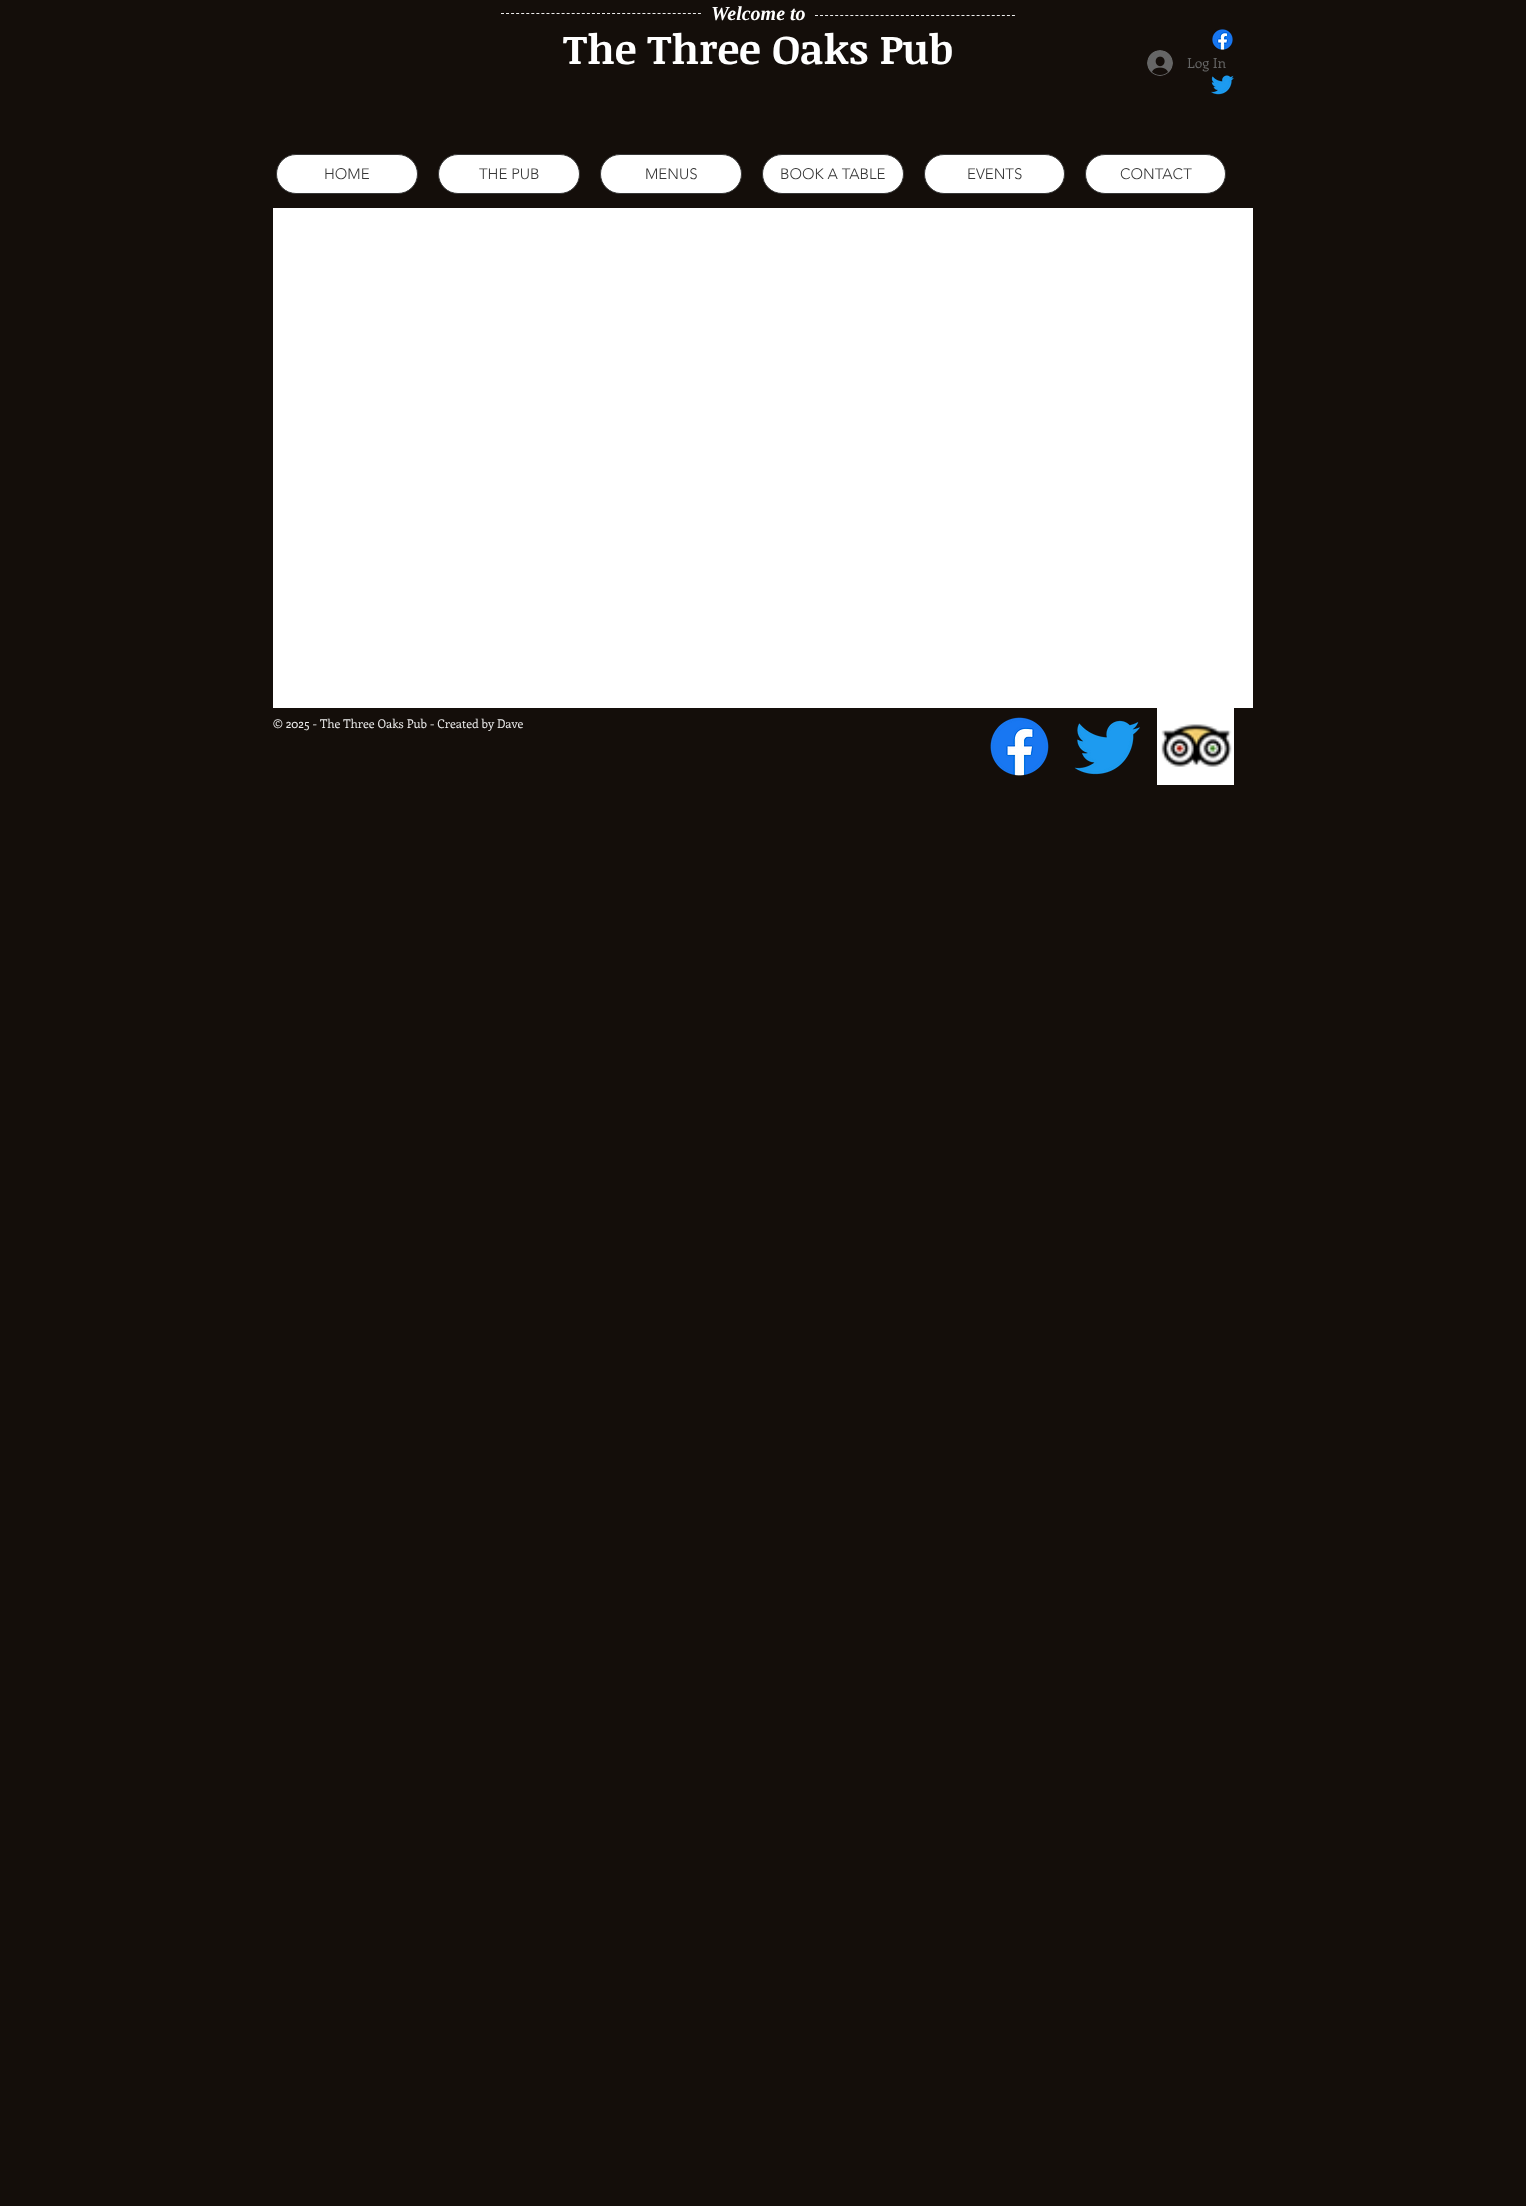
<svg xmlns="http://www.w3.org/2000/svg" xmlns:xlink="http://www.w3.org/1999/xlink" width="1526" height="2206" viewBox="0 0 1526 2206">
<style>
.cls-1{font:italic bold 20px Liberation Serif;fill:#ffffff}
.cls-2{font:bold 41px Noticia Text;fill:#ffffff}
.cls-3{font:14px Enriqueta;fill:#666666}
.cls-4{font:300 15px 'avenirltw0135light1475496';fill:#383838}
.cls-5{font:12px Enriqueta;fill:#ededed}
</style>
<rect width="100%" height="100%" fill="#140e0a"/>
<path fill="none" stroke="#ededed" stroke-dasharray="3 2.05" d="M501 13.5H701"/>
<path fill="none" stroke="#ededed" stroke-dasharray="3 2.05" d="M815 15.5H1015"/>
<image xlink:href="image0.png" x="1212" y="29" width="21" height="21"/>
<image xlink:href="image1.png" x="1211" y="75" width="23" height="20"/>
<image xlink:href="image2.png" x="1147" y="50" width="26" height="26"/>
<rect fill="#ffffff" stroke="#383838" x="276.5" y="154.5" width="141" height="39" rx="19.5"/>
<rect fill="#ffffff" stroke="#383838" x="438.5" y="154.5" width="141" height="39" rx="19.5"/>
<rect fill="#ffffff" stroke="#383838" x="600.5" y="154.5" width="141" height="39" rx="19.5"/>
<rect fill="#ffffff" stroke="#383838" x="762.5" y="154.5" width="141" height="39" rx="19.5"/>
<rect fill="#ffffff" stroke="#383838" x="924.5" y="154.5" width="140" height="39" rx="19.5"/>
<rect fill="#ffffff" stroke="#383838" x="1085.5" y="154.5" width="140" height="39" rx="19.5"/>
<rect fill="#ffffff" x="273" y="208" width="980" height="500"/>
<image xlink:href="image3.png" x="990" y="717" width="59" height="59"/>
<image xlink:href="image4.png" x="1074" y="720" width="66" height="55"/>
<image xlink:href="image5.png" x="1157" y="708" width="77" height="77"/>
<text class="cls-1" x="711" y="20">Welcome to</text>
<text class="cls-2" x="563" y="64">The Three Oaks Pub</text>
<text class="cls-3" x="1187" y="68">Log In</text>
<text class="cls-4" x="324" y="179">HOME</text>
<text class="cls-4" x="479" y="179">THE PUB</text>
<text class="cls-4" x="645" y="179">MENUS</text>
<text class="cls-4" x="780" y="179">BOOK A TABLE</text>
<text class="cls-4" x="967" y="179">EVENTS</text>
<text class="cls-4" x="1120" y="179">CONTACT</text>
<text class="cls-5" x="273" y="728">© 2025 - The Three Oaks Pub - Created by Dave</text>
</svg>
